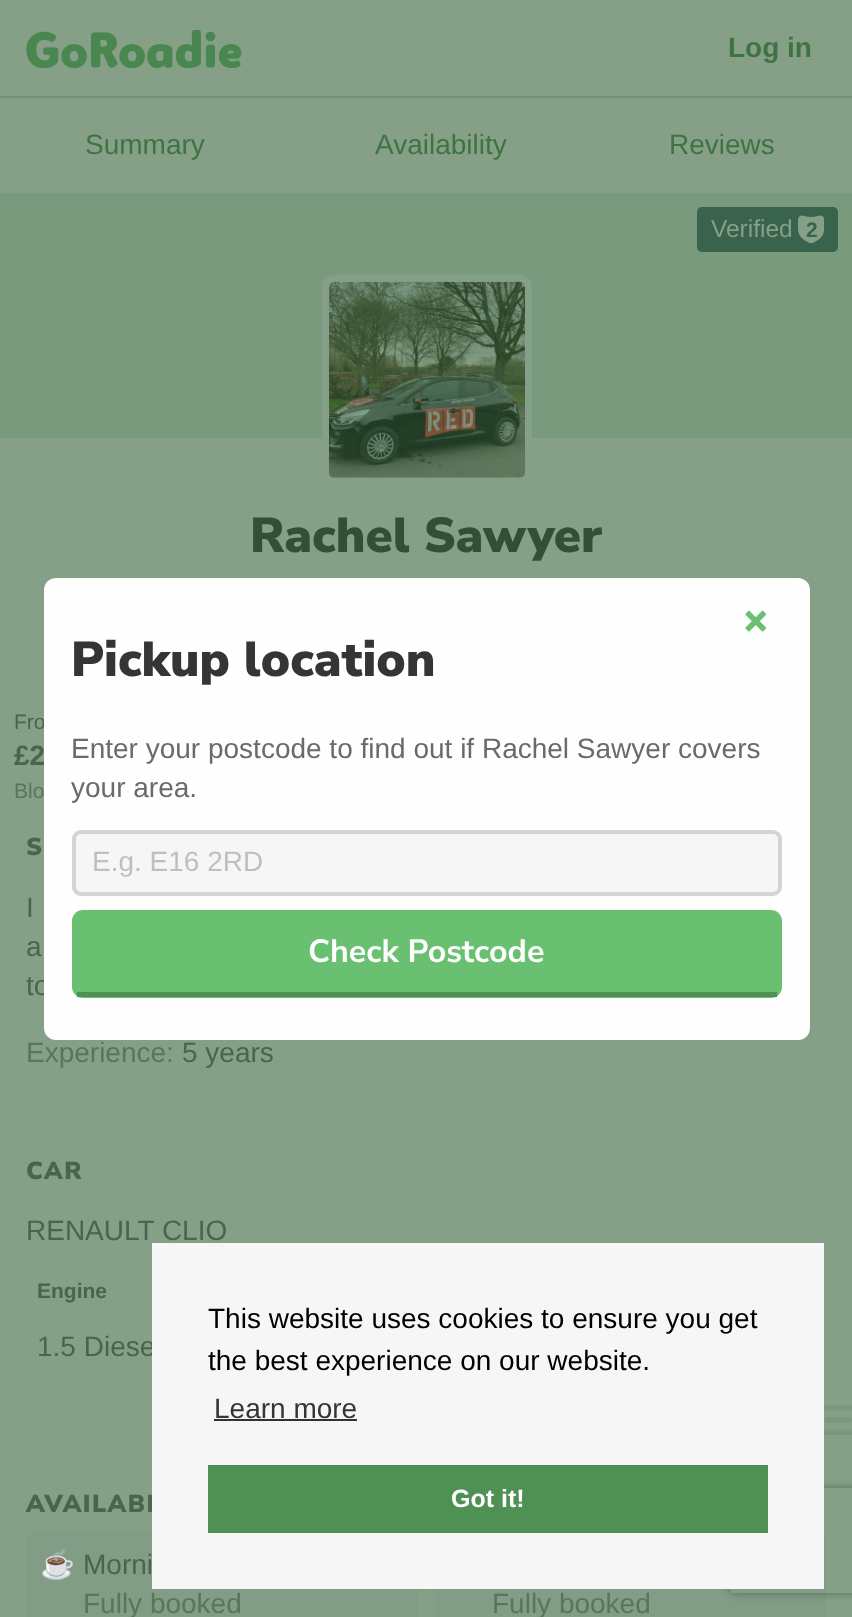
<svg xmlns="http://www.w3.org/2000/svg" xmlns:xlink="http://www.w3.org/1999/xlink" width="852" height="1617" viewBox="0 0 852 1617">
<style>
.cls-1{font:bold 28px Liberation Sans;fill:#407344}
.cls-2{font:28px Liberation Sans;fill:#407344}
.cls-3{font:24.5px Liberation Sans;fill:#859f88}
.cls-4{font:bold 21px Liberation Sans;fill:#39634c}
.cls-5{font:900 49px Nunito Sans;fill:#354f37}
.cls-6{font:21px Liberation Sans;fill:#4a644d}
.cls-7{font:bold 28px Liberation Sans;fill:#4a644d}
.cls-8{font:21px Liberation Sans;fill:#5b755d}
.cls-9{font:900 24.5px Nunito Sans;letter-spacing:1.5px;fill:#4a644d}
.cls-10{font:28px Liberation Sans;fill:#4a644d}
.cls-11{font:bold 32.25px Nunito Sans;fill:#fefefe}
.cls-12{font:28px Liberation Sans;fill:#bfbfbf}
.cls-13{font:28px Liberation Sans;fill:#6a6a6a}
.cls-14{font:900 49px Nunito Sans;fill:#353535}
.cls-15{font:28px Liberation Sans;fill:#5b755d}
.cls-16{font:bold 21px Liberation Sans;fill:#4a644d}
.cls-17{font:28px Noto Color Emoji;fill:#4a644d}
.cls-18{font:28px Liberation Sans;fill:#000000}
.cls-19{font:28px Liberation Sans;fill:#353535}
.cls-20{font:bold 25px Liberation Sans;fill:#fefefe}
</style>
<defs>
<clipPath id="clip1"><path d="M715 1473H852V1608H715ZM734 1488H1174C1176 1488 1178 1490 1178 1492V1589C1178 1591 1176 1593 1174 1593H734C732 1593 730 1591 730 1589V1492C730 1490 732 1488 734 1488Z" clip-rule="evenodd"/></clipPath>
</defs>
<rect width="100%" height="100%" fill="#86a088"/>
<rect fill="#758e77" x="0" y="96" width="852" height="2"/>
<image xlink:href="image0.png" x="26" y="30" width="216" height="38"/>
<rect fill="#7a9a7d" x="0" y="193" width="852" height="245"/>
<rect fill="#39634c" x="697" y="207" width="141" height="45" rx="5"/>
<image xlink:href="image1.png" x="798" y="215" width="26" height="28"/>
<rect fill="#859f88" stroke="#859f88" stroke-width="7" x="325.5" y="278.5" width="203" height="203" rx="8.5"/>
<image xlink:href="image2.png" x="329" y="281" width="196" height="197"/>
<image xlink:href="image4.png" x="824" y="1405" width="28" height="30"/>
<image xlink:href="image5.png" x="824" y="1407" width="1" height="18"/>
<rect fill="#829c85" x="26" y="1531" width="392" height="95" rx="9"/>
<rect fill="#829c85" x="436" y="1531" width="390" height="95" rx="9"/>
<g clip-path="url(#clip1)">
<rect fill="#536d55" filter="blur(4.5px)" x="730" y="1488" width="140" height="105" rx="4"/>
</g>
<text class="cls-1" x="728" y="57">Log in</text>
<text class="cls-2" x="85" y="154">Summary</text>
<text class="cls-2" x="375" y="154">Availability</text>
<text class="cls-2" x="669" y="154">Reviews</text>
<text class="cls-3" x="711" y="237">Verified</text>
<text class="cls-4" x="806" y="237">2</text>
<text class="cls-5" x="250" y="552">Rachel Sawyer</text>
<text class="cls-6" x="14" y="729">Fro</text>
<text class="cls-7" x="14" y="765">£2</text>
<text class="cls-8" x="14" y="798">Blo</text>
<text class="cls-9" x="26" y="855">S</text>
<text class="cls-10"><tspan x="26" y="917">I</tspan><tspan x="26" y="956">a</tspan><tspan x="26" y="995">to</tspan></text>
<rect fill="#fefefe" x="44" y="578" width="766" height="462" rx="12"/>
<rect fill="#6ac071" x="72" y="910" width="710" height="88" rx="11"/>
<text class="cls-11" x="308" y="962">Check Postcode</text>
<rect fill="#509055" x="77" y="992" width="700" height="5"/>
<image xlink:href="image3.png" x="745" y="610" width="22" height="22"/>
<rect fill="#f6f6f6" stroke="#d4d4d4" stroke-width="4" x="74" y="832" width="706" height="62" rx="7"/>
<text class="cls-12" x="92" y="871">E.g. E16 2RD</text>
<text class="cls-13" x="71" y="797">your area.</text>
<text class="cls-13" x="71" y="758">Enter your postcode to find out if Rachel Sawyer covers</text>
<text class="cls-14" x="71" y="676">Pickup location</text>
<text class="cls-15" x="26" y="1062">Experience:</text>
<text class="cls-10" x="182" y="1062">5 years</text>
<text class="cls-9" x="26" y="1179">CAR</text>
<text class="cls-10" x="26" y="1240">RENAULT CLIO</text>
<text class="cls-16" x="37" y="1298">Engine</text>
<text class="cls-10" x="37" y="1356">1.5 Diese</text>
<text class="cls-9" x="26" y="1512">AVAILABI</text>
<text class="cls-17" x="40" y="1574">☕</text>
<text class="cls-10" x="83" y="1574">Morni</text>
<text class="cls-15" x="83" y="1613">Fully booked</text>
<text class="cls-15" x="492" y="1613">Fully booked</text>
<rect fill="#f6f6f6" x="152" y="1243" width="672" height="346"/>
<text class="cls-18"><tspan x="208" y="1328">This website uses cookies to ensure you get</tspan><tspan x="208" y="1370">the best experience on our website.</tspan></text>
<text class="cls-19" x="214" y="1418">Learn more</text>
<rect fill="#313131" x="214" y="1419" width="143" height="2"/>
<rect fill="#4f9054" x="208" y="1465" width="560" height="68"/>
<text class="cls-20" x="451" y="1507">Got it!</text>
</svg>
